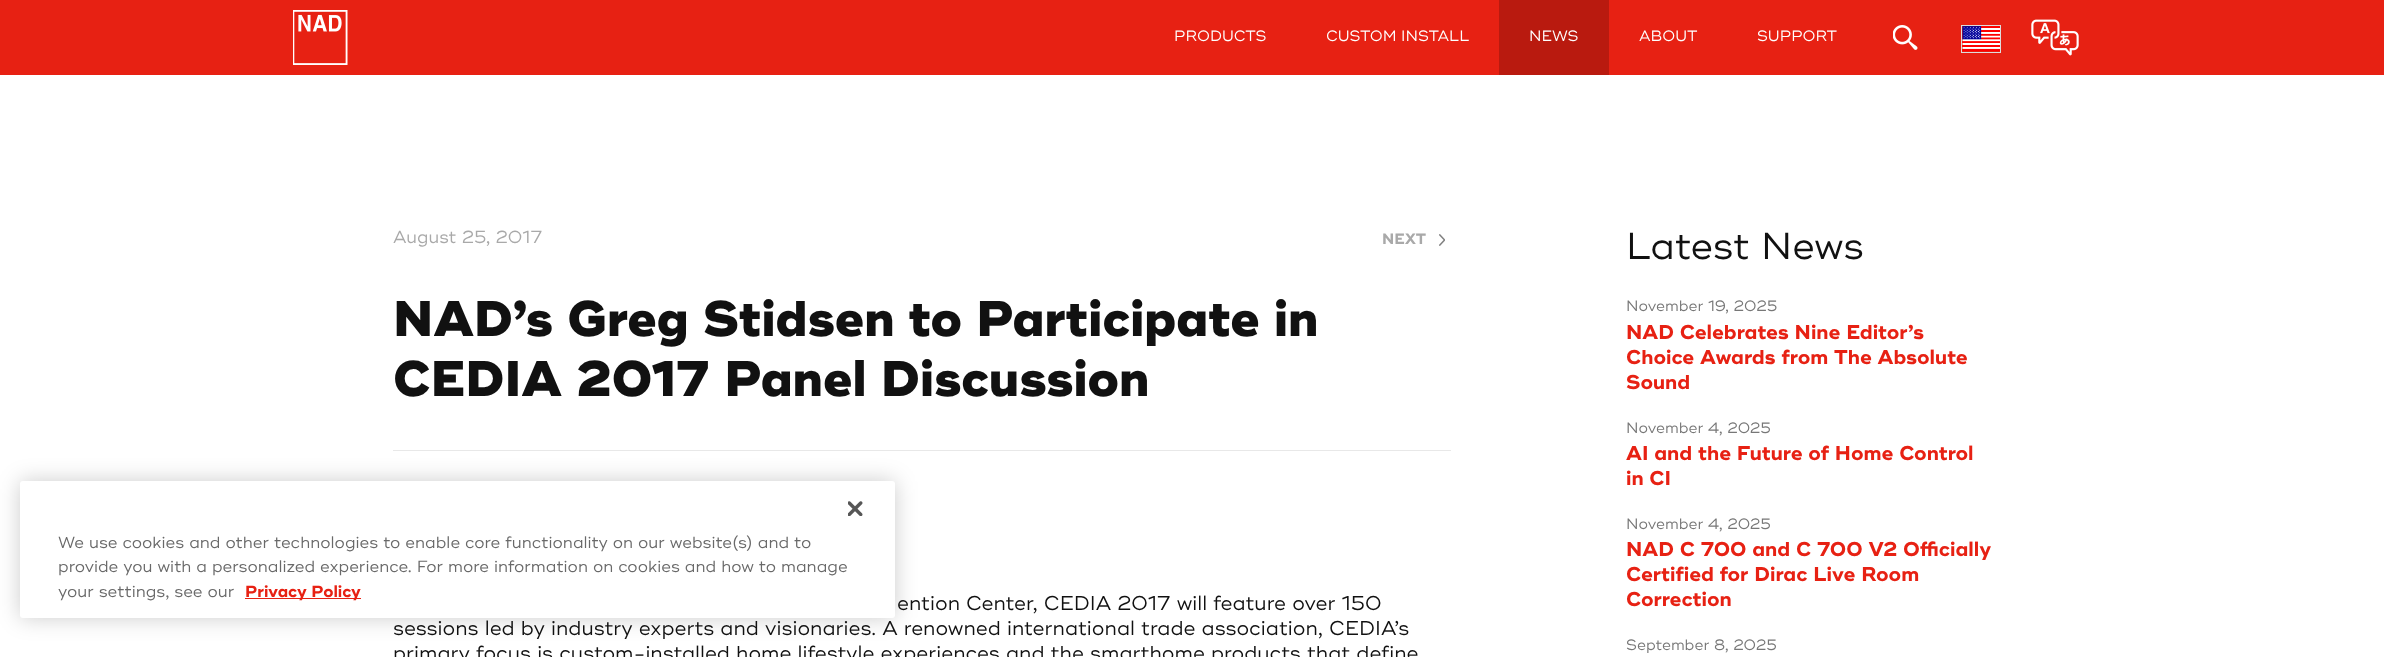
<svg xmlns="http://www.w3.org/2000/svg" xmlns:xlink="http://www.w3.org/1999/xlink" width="2384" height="657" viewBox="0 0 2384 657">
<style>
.cls-1{font:15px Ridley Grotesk;fill:#ffffff}
.cls-2{font:17.5px Ridley Grotesk;fill:#a9a9a9}
.cls-3{font:bold 15px Ridley Grotesk;fill:#a9a9a9}
.cls-4{font:800 50px Ridley Grotesk;fill:#111111}
.cls-5{font:20px Ridley Grotesk;fill:#111111}
.cls-6{font:37.5px Ridley Grotesk;fill:#111111}
.cls-7{font:15px Ridley Grotesk;fill:#777777}
.cls-8{font:bold 20px Ridley Grotesk;fill:#e72113}
.cls-9{font:16.25px Ridley Grotesk;fill:#696969}
.cls-10{font:bold 16.25px Ridley Grotesk;fill:#e72113}
</style>
<rect width="100%" height="100%" fill="#ffffff"/>
<rect fill="#e72113" x="0" y="0" width="2384" height="75"/>
<image xlink:href="image0.png" x="293" y="10" width="55" height="55"/>
<rect fill="#b91a0f" x="1499" y="0" width="110" height="75"/>
<image xlink:href="image1.png" x="1893" y="25" width="25" height="25"/>
<rect fill="none" stroke="#dddddd" x="1961.5" y="25.5" width="39" height="27"/>
<image xlink:href="image2.png" x="1962" y="26" width="38" height="26"/>
<image xlink:href="image3.png" x="2031" y="19" width="48" height="37"/>
<image xlink:href="image4.png" x="1439" y="234" width="6" height="12"/>
<rect fill="#e8e8e8" x="393" y="450" width="1058" height="1"/>
<rect fill="#000000" fill-opacity="0.2" filter="blur(11px)" x="20" y="481" width="875" height="137" rx="3"/>
<rect fill="#ffffff" x="20" y="481" width="875" height="137" rx="3"/>
<image xlink:href="image5.png" x="848" y="501" width="15" height="15"/>
<rect fill="#e72113" x="245" y="598" width="116" height="1"/>
<text class="cls-1" x="1174" y="41">PRODUCTS</text>
<text class="cls-1" x="1326" y="41">CUSTOM INSTALL</text>
<text class="cls-1" x="1529" y="41">NEWS</text>
<text class="cls-1" x="1639" y="41">ABOUT</text>
<text class="cls-1" x="1757" y="41">SUPPORT</text>
<text class="cls-2" x="393" y="243">August 25, 2017</text>
<text class="cls-3" x="1382" y="244">NEXT</text>
<text class="cls-4"><tspan x="393" y="336">NAD’s Greg Stidsen to Participate in</tspan><tspan x="393" y="396">CEDIA 2017 Panel Discussion</tspan></text>
<text class="cls-5" x="897" y="610">ention Center, CEDIA 2017 will feature over 150</text>
<text class="cls-5"><tspan x="393" y="635">sessions led by industry experts and visionaries. A renowned international trade association, CEDIA’s</tspan><tspan x="393" y="660">primary focus is custom-installed home lifestyle experiences and the smarthome products that define</tspan></text>
<text class="cls-6" x="1626" y="259">Latest News</text>
<text class="cls-7" x="1626" y="311">November 19, 2025</text>
<text class="cls-8"><tspan x="1626" y="339">NAD Celebrates Nine Editor’s</tspan><tspan x="1626" y="364">Choice Awards from The Absolute</tspan><tspan x="1626" y="389">Sound</tspan></text>
<text class="cls-7" x="1626" y="433">November 4, 2025</text>
<text class="cls-8"><tspan x="1626" y="460">AI and the Future of Home Control</tspan><tspan x="1626" y="485">in CI</tspan></text>
<text class="cls-7" x="1626" y="529">November 4, 2025</text>
<text class="cls-8"><tspan x="1626" y="556">NAD C 700 and C 700 V2 Officially</tspan><tspan x="1626" y="581">Certified for Dirac Live Room</tspan><tspan x="1626" y="606">Correction</tspan></text>
<text class="cls-7" x="1626" y="650">September 8, 2025</text>
<text class="cls-9"><tspan x="58" y="548">We use cookies and other technologies to enable core functionality on our website(s) and to</tspan><tspan x="58" y="572">provide you with a personalized experience. For more information on cookies and how to manage</tspan><tspan x="58" y="597">your settings, see our</tspan></text>
<text class="cls-10" x="245" y="597">Privacy Policy</text>
</svg>
